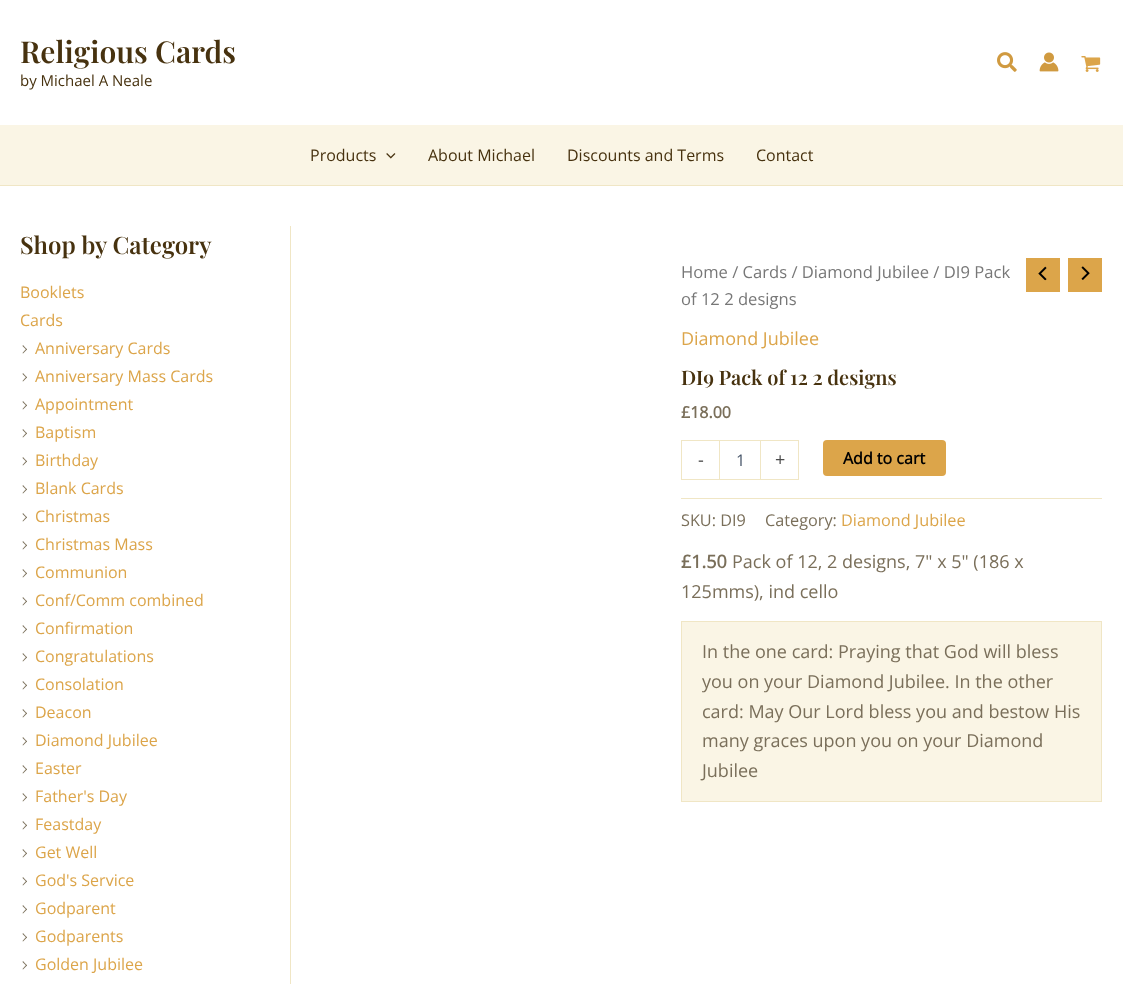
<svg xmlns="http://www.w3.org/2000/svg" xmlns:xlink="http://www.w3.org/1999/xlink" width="1123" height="984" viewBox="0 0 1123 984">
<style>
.cls-1{font:600 30px Playfair Display;fill:#47320f}
.cls-2{font:15px Open Sans;fill:#47320f}
.cls-3{font:16px Open Sans;fill:#47320f}
.cls-4{font:600 24px Playfair Display;fill:#47320f}
.cls-5{font:16px Open Sans;fill:#dca54a}
.cls-6{font:16.6px Open Sans;fill:#777777}
.cls-7{font:18px Open Sans;fill:#dca54a}
.cls-8{font:600 20px Playfair Display;fill:#47320f}
.cls-9{font:bold 16px Open Sans;fill:#7a6f5a}
.cls-10{font:18px Open Sans;fill:#4a4a4a}
.cls-11{font:16px Open Sans;fill:#475569}
.cls-12{font:bold 16px Open Sans;fill:#000000}
.cls-13{font:16.25px Open Sans;fill:#7a6f5a}
.cls-14{font:16.25px Open Sans;fill:#dca54a}
.cls-15{font:bold 18px Open Sans;fill:#7a6f5a}
.cls-16{font:18px Open Sans;fill:#7a6f5a}
</style>
<rect width="100%" height="100%" fill="#ffffff"/>
<image xlink:href="image0.png" x="997" y="52" width="20" height="20"/>
<image xlink:href="image1.png" x="1039" y="52" width="20" height="20"/>
<image xlink:href="image2.png" x="1081" y="56" width="20" height="16"/>
<rect fill="#faf5e5" x="0" y="125" width="1123" height="60"/>
<rect fill="#f0e6c5" x="0" y="185" width="1123" height="1"/>
<image xlink:href="image3.png" x="386" y="153" width="10" height="6"/>
<rect fill="#f0e6c5" x="290" y="226" width="1" height="758"/>
<path fill="#7a6f5a" d="M23 345L27 349.5L26.5 350L22.5 346Z"/>
<path fill="#7a6f5a" d="M26.5 348.5L27 349.5L23 353.5L22.5 353Z"/>
<path fill="#7a6f5a" d="M23 373L27 377.5L26.5 378L22.5 374Z"/>
<path fill="#7a6f5a" d="M26.5 376.5L27 377.5L23 381.5L22.5 381Z"/>
<path fill="#7a6f5a" d="M23 401L27 405.5L26.5 406L22.5 402Z"/>
<path fill="#7a6f5a" d="M26.5 404.5L27 405.5L23 409.5L22.5 409Z"/>
<path fill="#7a6f5a" d="M23 429L27 433.5L26.5 434L22.5 430Z"/>
<path fill="#7a6f5a" d="M26.5 432.5L27 433.5L23 437.5L22.5 437Z"/>
<path fill="#7a6f5a" d="M23 457L27 461.5L26.5 462L22.5 458Z"/>
<path fill="#7a6f5a" d="M26.5 460.5L27 461.5L23 465.5L22.5 465Z"/>
<path fill="#7a6f5a" d="M23 485L27 489.5L26.5 490L22.5 486Z"/>
<path fill="#7a6f5a" d="M26.5 488.5L27 489.5L23 493.5L22.5 493Z"/>
<path fill="#7a6f5a" d="M23 513L27 517.5L26.5 518L22.5 514Z"/>
<path fill="#7a6f5a" d="M26.5 516.5L27 517.5L23 521.5L22.5 521Z"/>
<path fill="#7a6f5a" d="M23 541L27 545.5L26.5 546L22.5 542Z"/>
<path fill="#7a6f5a" d="M26.5 544.5L27 545.5L23 549.5L22.5 549Z"/>
<path fill="#7a6f5a" d="M23 569L27 573.5L26.5 574L22.5 570Z"/>
<path fill="#7a6f5a" d="M26.5 572.5L27 573.5L23 577.5L22.5 577Z"/>
<path fill="#7a6f5a" d="M23 597L27 601.5L26.5 602L22.5 598Z"/>
<path fill="#7a6f5a" d="M26.5 600.5L27 601.5L23 605.5L22.5 605Z"/>
<path fill="#7a6f5a" d="M23 625L27 629.5L26.5 630L22.5 626Z"/>
<path fill="#7a6f5a" d="M26.5 628.5L27 629.5L23 633.5L22.5 633Z"/>
<path fill="#7a6f5a" d="M23 653L27 657.5L26.5 658L22.5 654Z"/>
<path fill="#7a6f5a" d="M26.5 656.5L27 657.5L23 661.5L22.5 661Z"/>
<path fill="#7a6f5a" d="M23 681L27 685.5L26.5 686L22.5 682Z"/>
<path fill="#7a6f5a" d="M26.5 684.5L27 685.5L23 689.5L22.5 689Z"/>
<path fill="#7a6f5a" d="M23 709L27 713.5L26.5 714L22.5 710Z"/>
<path fill="#7a6f5a" d="M26.5 712.5L27 713.5L23 717.5L22.5 717Z"/>
<path fill="#7a6f5a" d="M23 737L27 741.5L26.5 742L22.5 738Z"/>
<path fill="#7a6f5a" d="M26.5 740.5L27 741.5L23 745.5L22.5 745Z"/>
<path fill="#7a6f5a" d="M23 765L27 769.5L26.5 770L22.5 766Z"/>
<path fill="#7a6f5a" d="M26.5 768.5L27 769.5L23 773.5L22.5 773Z"/>
<path fill="#7a6f5a" d="M23 793L27 797.5L26.5 798L22.5 794Z"/>
<path fill="#7a6f5a" d="M26.5 796.5L27 797.5L23 801.5L22.5 801Z"/>
<path fill="#7a6f5a" d="M23 821L27 825.5L26.5 826L22.5 822Z"/>
<path fill="#7a6f5a" d="M26.5 824.5L27 825.5L23 829.5L22.5 829Z"/>
<path fill="#7a6f5a" d="M23 849L27 853.5L26.5 854L22.5 850Z"/>
<path fill="#7a6f5a" d="M26.5 852.5L27 853.5L23 857.5L22.5 857Z"/>
<path fill="#7a6f5a" d="M23 877L27 881.5L26.5 882L22.5 878Z"/>
<path fill="#7a6f5a" d="M26.5 880.5L27 881.5L23 885.5L22.5 885Z"/>
<path fill="#7a6f5a" d="M23 905L27 909.5L26.5 910L22.5 906Z"/>
<path fill="#7a6f5a" d="M26.5 908.5L27 909.5L23 913.5L22.5 913Z"/>
<path fill="#7a6f5a" d="M23 933L27 937.5L26.5 938L22.5 934Z"/>
<path fill="#7a6f5a" d="M26.5 936.5L27 937.5L23 941.5L22.5 941Z"/>
<path fill="#7a6f5a" d="M23 961L27 965.5L26.5 966L22.5 962Z"/>
<path fill="#7a6f5a" d="M26.5 964.5L27 965.5L23 969.5L22.5 969Z"/>
<rect fill="#dca54a" x="1026" y="258" width="34" height="34"/>
<image xlink:href="image4.png" x="1038" y="266" width="9" height="15"/>
<rect fill="#dca54a" x="1068" y="258" width="34" height="34"/>
<image xlink:href="image5.png" x="1081" y="266" width="9" height="14"/>
<rect fill="#f0e6c5" x="681" y="440" width="38" height="1"/>
<rect fill="#f0e6c5" x="681" y="479" width="38" height="1"/>
<rect fill="#f0e6c5" x="681" y="440" width="1" height="40"/>
<rect fill="none" stroke="#f0e6c5" x="719.5" y="440.5" width="41" height="39"/>
<rect fill="#f0e6c5" x="761" y="440" width="38" height="1"/>
<rect fill="#f0e6c5" x="798" y="440" width="1" height="40"/>
<rect fill="#f0e6c5" x="761" y="479" width="38" height="1"/>
<rect fill="#dca54a" x="823" y="440" width="123" height="36" rx="4"/>
<rect fill="#f0e6c5" x="681" y="498" width="421" height="1"/>
<rect fill="#faf5e5" stroke="#f0e6c5" x="681.5" y="621.5" width="420" height="180"/>
<text class="cls-1" x="20" y="63">Religious Cards</text>
<text class="cls-2" x="20" y="86">by Michael A Neale</text>
<text class="cls-3" x="310" y="161">Products</text>
<text class="cls-3" x="428" y="161">About Michael</text>
<text class="cls-3" x="567" y="161">Discounts and Terms</text>
<text class="cls-3" x="756" y="161">Contact</text>
<text class="cls-4" x="20" y="254">Shop by Category</text>
<text class="cls-5"><tspan x="20" y="298">Booklets</tspan><tspan x="20" y="326">Cards</tspan></text>
<text class="cls-5"><tspan x="35" y="354">Anniversary Cards</tspan><tspan x="35" y="382">Anniversary Mass Cards</tspan><tspan x="35" y="410">Appointment</tspan><tspan x="35" y="438">Baptism</tspan><tspan x="35" y="466">Birthday</tspan><tspan x="35" y="494">Blank Cards</tspan><tspan x="35" y="522">Christmas</tspan><tspan x="35" y="550">Christmas Mass</tspan><tspan x="35" y="578">Communion</tspan><tspan x="35" y="606">Conf/Comm combined</tspan><tspan x="35" y="634">Confirmation</tspan><tspan x="35" y="662">Congratulations</tspan><tspan x="35" y="690">Consolation</tspan><tspan x="35" y="718">Deacon</tspan><tspan x="35" y="746">Diamond Jubilee</tspan><tspan x="35" y="774">Easter</tspan><tspan x="35" y="802">Father's Day</tspan><tspan x="35" y="830">Feastday</tspan><tspan x="35" y="858">Get Well</tspan><tspan x="35" y="886">God's Service</tspan><tspan x="35" y="914">Godparent</tspan><tspan x="35" y="942">Godparents</tspan><tspan x="35" y="970">Golden Jubilee</tspan></text>
<text class="cls-6"><tspan x="681" y="278">Home / Cards / Diamond Jubilee / DI9 Pack</tspan><tspan x="681" y="305">of 12 2 designs</tspan></text>
<text class="cls-7" x="681" y="345">Diamond Jubilee</text>
<text class="cls-8" x="681" y="385">DI9 Pack of 12 2 designs</text>
<text class="cls-9" x="681" y="418">£18.00</text>
<text class="cls-10" x="698" y="466">-</text>
<text class="cls-11" x="736" y="466">1</text>
<text class="cls-10" x="775" y="466">+</text>
<text class="cls-12" x="843" y="464">Add to cart</text>
<text class="cls-13" x="681" y="526">SKU: DI9</text>
<text class="cls-13" x="765" y="526">Category:</text>
<text class="cls-14" x="841" y="526">Diamond Jubilee</text>
<text class="cls-15" x="681" y="568">£1.50</text>
<text class="cls-16" x="732" y="568">Pack of 12, 2 designs, 7" x 5" (186 x</text>
<text class="cls-16" x="681" y="598">125mms), ind cello</text>
<text class="cls-16"><tspan x="702" y="658">In the one card: Praying that God will bless</tspan><tspan x="702" y="688">you on your Diamond Jubilee. In the other</tspan><tspan x="702" y="718">card: May Our Lord bless you and bestow His</tspan><tspan x="702" y="747">many graces upon you on your Diamond</tspan><tspan x="702" y="777">Jubilee</tspan></text>
</svg>
